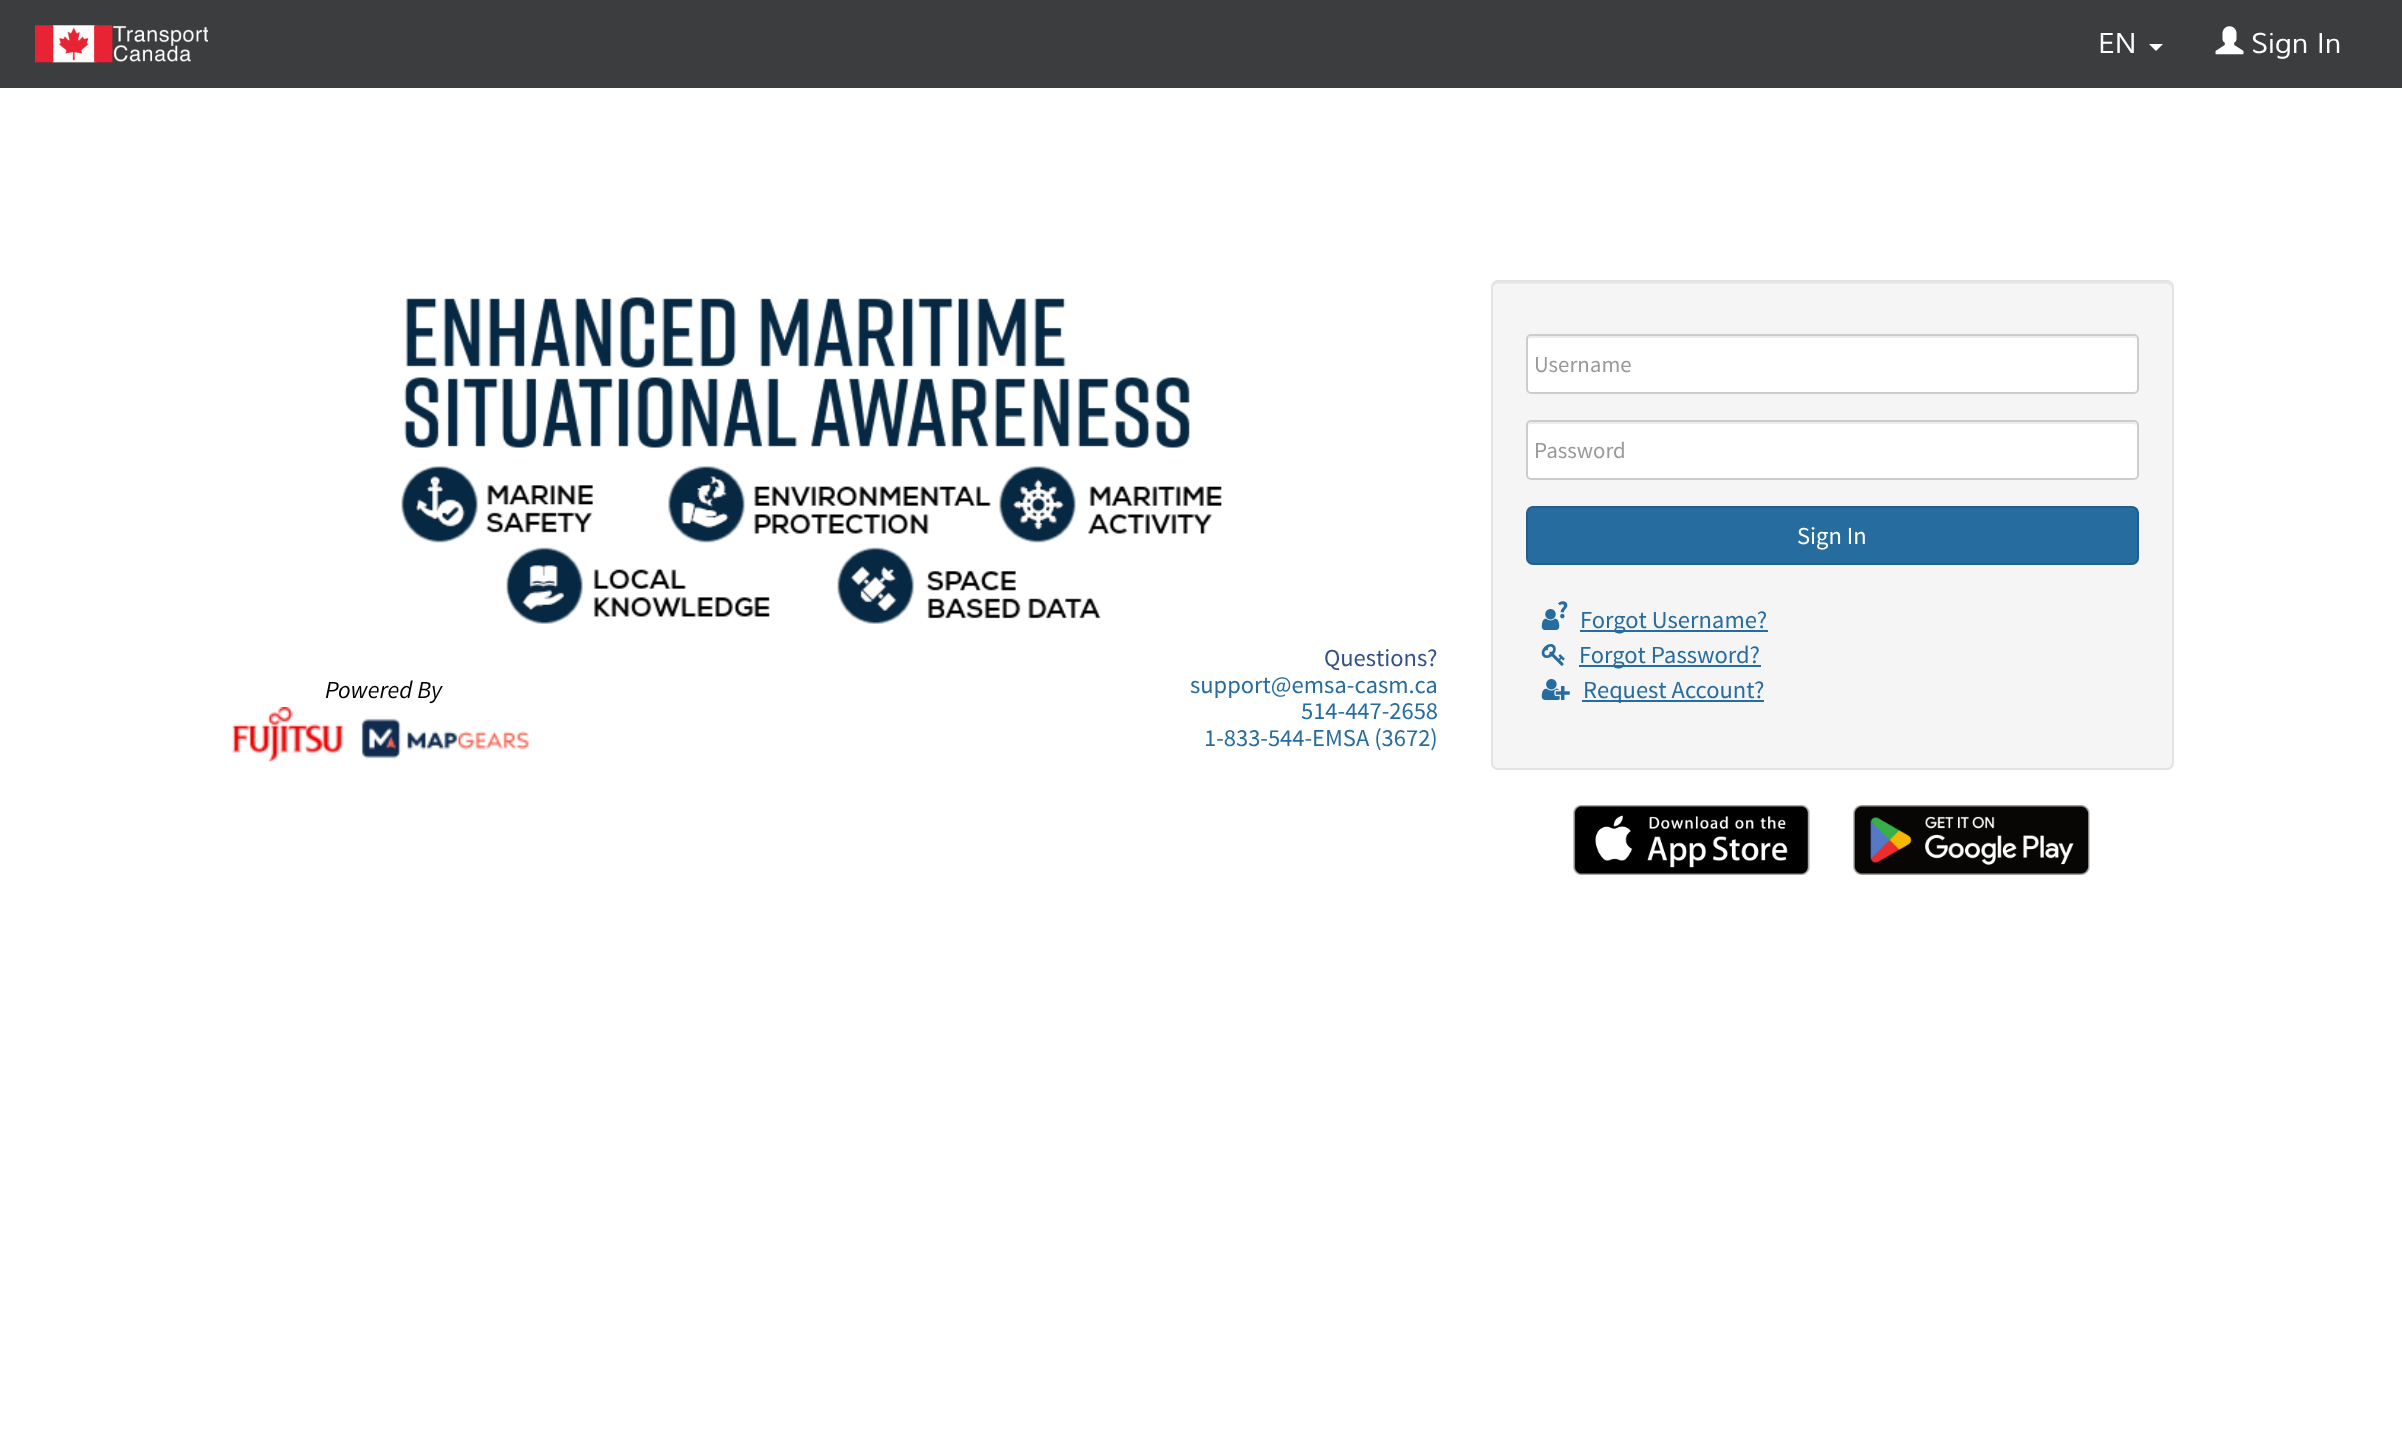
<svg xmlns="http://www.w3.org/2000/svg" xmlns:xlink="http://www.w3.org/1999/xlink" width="2402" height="1429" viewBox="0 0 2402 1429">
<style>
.cls-1{font:italic 28px Muli;fill:#ffffff}
.cls-2{font:italic 24.5px Source Sans Pro;fill:#000000}
.cls-3{font:24.5px Source Sans Pro;fill:#34508a}
.cls-4{font:24.5px Source Sans Pro;fill:#276c9f}
.cls-5{font:22.75px Source Sans Pro;fill:#999999}
.cls-6{font:24.5px Source Sans Pro;fill:#ffffff}
.cls-7{font:bold 24.5px Source Sans Pro;fill:#276c9f}
</style>
<rect width="100%" height="100%" fill="#ffffff"/>
<rect fill="#3c3d3e" x="0" y="0" width="2402" height="88"/>
<image xlink:href="image0.png" x="35" y="25" width="173" height="38"/>
<path fill="#ffffff" d="M2149 44H2163L2156 51Z"/>
<image xlink:href="image1.png" x="2215" y="26" width="29" height="29"/>
<image xlink:href="image2.png" x="401" y="297" width="821" height="327"/>
<image xlink:href="image3.png" x="232" y="707" width="111" height="55"/>
<image xlink:href="image4.png" x="361" y="718" width="168" height="41"/>
<rect fill="#f5f5f5" x="1491" y="280" width="683" height="490" rx="7"/>
<path fill="#e9e9e9" d="M1498 284H2166C2169 284 2172 286 2172 289V287C2172 284 2170 282 2167 282H1498C1495 282 1493 284 1493 287V289C1493 286 1495 284 1498 284Z"/>
<rect fill="none" stroke="#e3e3e3" stroke-width="2" x="1492" y="281" width="681" height="488" rx="6"/>
<rect fill="#ffffff" x="1526" y="334" width="613" height="60" rx="5"/>
<path fill="#ececec" d="M1531 338H2133C2135 338 2137 339 2137 341V340C2137 338 2135 336 2133 336H1532C1530 336 1528 338 1528 340V341C1528 339 1529 338 1531 338Z"/>
<rect fill="none" stroke="#cccccc" stroke-width="2" x="1527" y="335" width="611" height="58" rx="4"/>
<rect fill="#ffffff" x="1526" y="420" width="613" height="60" rx="5"/>
<path fill="#ececec" d="M1531 424H2133C2135 424 2137 425 2137 427V426C2137 424 2135 422 2133 422H1532C1530 422 1528 424 1528 426V427C1528 425 1529 424 1531 424Z"/>
<rect fill="none" stroke="#cccccc" stroke-width="2" x="1527" y="421" width="611" height="58" rx="4"/>
<rect fill="#276c9f" stroke="#225e8b" stroke-width="2" x="1527" y="507" width="611" height="57" rx="6"/>
<image xlink:href="image5.png" x="1541" y="609" width="19" height="21"/>
<rect fill="#276c9f" x="1580" y="630" width="188" height="2"/>
<image xlink:href="image6.png" x="1541" y="644" width="24" height="22"/>
<rect fill="#276c9f" x="1579" y="665" width="182" height="2"/>
<image xlink:href="image7.png" x="1541" y="679" width="29" height="21"/>
<rect fill="#276c9f" x="1582" y="700" width="182" height="2"/>
<image xlink:href="image8.png" x="1573" y="805" width="237" height="70"/>
<image xlink:href="image9.png" x="1853" y="805" width="237" height="70"/>
<text class="cls-1" x="2098" y="53">EN</text>
<text class="cls-1" x="2251" y="53">Sign In</text>
<text class="cls-2" x="325" y="698">Powered By</text>
<text class="cls-3" x="1324" y="666">Questions?</text>
<text class="cls-4" x="1190" y="693">support@emsa-casm.ca</text>
<text class="cls-4" x="1301" y="719">514-447-2658</text>
<text class="cls-4" x="1204" y="746">1-833-544-EMSA (3672)</text>
<text class="cls-5" x="1534" y="372">Username</text>
<text class="cls-5" x="1534" y="458">Password</text>
<text class="cls-6" x="1797" y="544">Sign In</text>
<text class="cls-7" x="1557" y="618">?</text>
<text class="cls-4" x="1580" y="628">Forgot Username?</text>
<text class="cls-4" x="1579" y="663">Forgot Password?</text>
<text class="cls-4" x="1583" y="698">Request Account?</text>
</svg>
